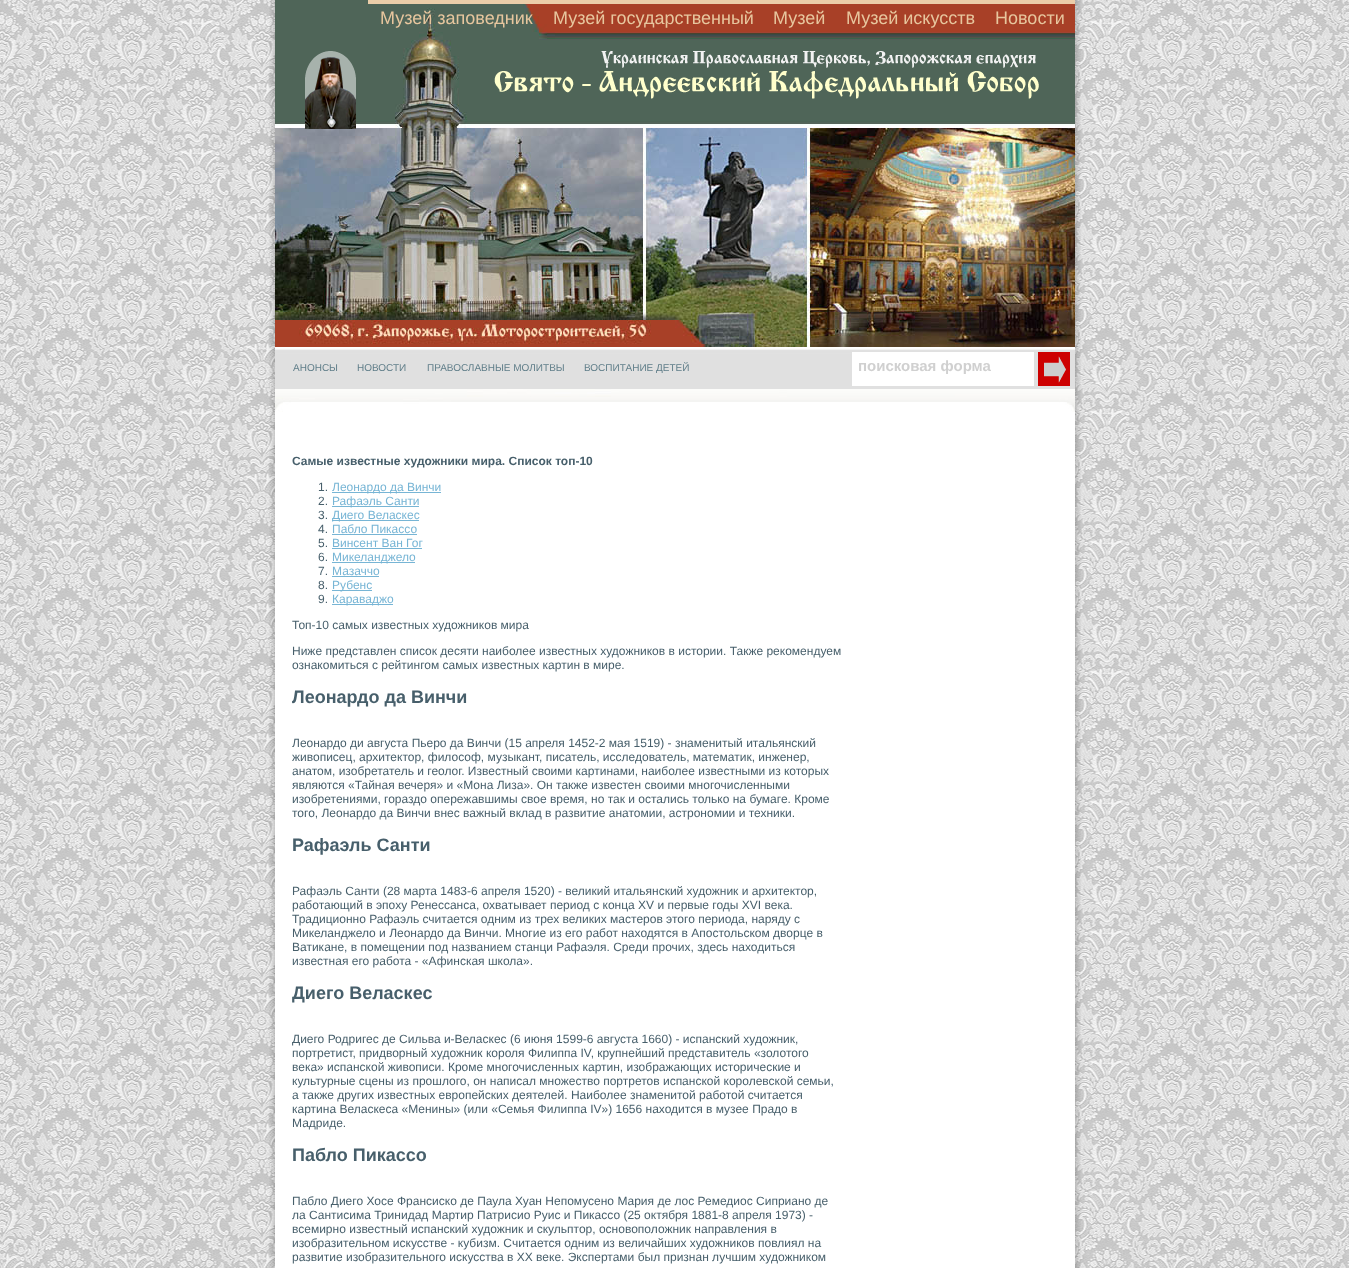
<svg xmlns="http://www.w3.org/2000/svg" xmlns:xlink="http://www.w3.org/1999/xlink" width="1349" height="1268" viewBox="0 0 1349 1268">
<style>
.cls-1{font:18px Liberation Sans;fill:#e7c69e}
.cls-2{font:10px Liberation Sans;fill:#607e89}
.cls-3{font:bold 15px Liberation Sans;fill:#d0d0d0}
.cls-4{font:bold 12px Liberation Sans;fill:#475f6b}
.cls-5{font:12px Liberation Sans;fill:#475f6b}
.cls-6{font:12px Liberation Sans;fill:#77b5d5}
.cls-7{font:bold 18px Liberation Sans;fill:#475f6b}
</style>
<defs>
<clipPath id="clip1"><rect x="858" y="357" width="170" height="17"/></clipPath>
</defs>
<rect width="100%" height="100%" fill="#ffffff"/>
<image xlink:href="image0.png" x="0" y="0" width="1349" height="1268"/>
<image xlink:href="image1.png" x="269" y="0" width="812" height="1268"/>
<image xlink:href="image2.png" x="275" y="0" width="800" height="347"/>
<rect fill="#ebcda9" x="368" y="0" width="707" height="4"/>
<image xlink:href="image3.png" x="305" y="51" width="51" height="78"/>
<image xlink:href="image4.png" x="494" y="51" width="545" height="48"/>
<image xlink:href="image5.png" x="275" y="347" width="800" height="42"/>
<image xlink:href="image6.png" x="852" y="352" width="218" height="34"/>
<image xlink:href="image7.png" x="275" y="389" width="800" height="23"/>
<rect fill="#77b5d5" x="332" y="492" width="109" height="1"/>
<rect fill="#77b5d5" x="332" y="506" width="87" height="1"/>
<rect fill="#77b5d5" x="332" y="520" width="87" height="1"/>
<rect fill="#77b5d5" x="332" y="534" width="85" height="1"/>
<rect fill="#77b5d5" x="332" y="548" width="90" height="1"/>
<rect fill="#77b5d5" x="332" y="562" width="83" height="1"/>
<rect fill="#77b5d5" x="332" y="576" width="47" height="1"/>
<rect fill="#77b5d5" x="332" y="590" width="40" height="1"/>
<rect fill="#77b5d5" x="332" y="604" width="61" height="1"/>
<text class="cls-1" x="380" y="24">Музей заповедник</text>
<text class="cls-1" x="553" y="24">Музей государственный</text>
<text class="cls-1" x="773" y="24">Музей</text>
<text class="cls-1" x="846" y="24">Музей искусств</text>
<text class="cls-1" x="995" y="24">Новости</text>
<text class="cls-2" x="293" y="371">АНОНСЫ</text>
<text class="cls-2" x="357" y="371">НОВОСТИ</text>
<text class="cls-2" x="427" y="371">ПРАВОСЛАВНЫЕ МОЛИТВЫ</text>
<text class="cls-2" x="584" y="371">ВОСПИТАНИЕ ДЕТЕЙ</text>
<g clip-path="url(#clip1)">
<text class="cls-3" x="858" y="371">поисковая форма</text>
</g>
<text class="cls-4" x="292" y="465">Самые известные художники мира. Список топ-10</text>
<text class="cls-5" x="318" y="491">1.</text>
<text class="cls-6" x="332" y="491">Леонардо да Винчи</text>
<text class="cls-5" x="318" y="505">2.</text>
<text class="cls-6" x="332" y="505">Рафаэль Санти</text>
<text class="cls-5" x="318" y="519">3.</text>
<text class="cls-6" x="332" y="519">Диего Веласкес</text>
<text class="cls-5" x="318" y="533">4.</text>
<text class="cls-6" x="332" y="533">Пабло Пикассо</text>
<text class="cls-5" x="318" y="547">5.</text>
<text class="cls-6" x="332" y="547">Винсент Ван Гог</text>
<text class="cls-5" x="318" y="561">6.</text>
<text class="cls-6" x="332" y="561">Микеланджело</text>
<text class="cls-5" x="318" y="575">7.</text>
<text class="cls-6" x="332" y="575">Мазаччо</text>
<text class="cls-5" x="318" y="589">8.</text>
<text class="cls-6" x="332" y="589">Рубенс</text>
<text class="cls-5" x="318" y="603">9.</text>
<text class="cls-6" x="332" y="603">Караваджо</text>
<text class="cls-5" x="292" y="629">Топ-10 самых известных художников мира</text>
<text class="cls-5"><tspan x="292" y="655">Ниже представлен список десяти наиболее известных художников в истории. Также рекомендуем</tspan><tspan x="292" y="669">ознакомиться с рейтингом самых известных картин в мире.</tspan></text>
<text class="cls-7" x="292" y="703">Леонардо да Винчи</text>
<text class="cls-5"><tspan x="292" y="747">Леонардо ди августа Пьеро да Винчи (15 апреля 1452-2 мая 1519) - знаменитый итальянский</tspan><tspan x="292" y="761">живописец, архитектор, философ, музыкант, писатель, исследователь, математик, инженер,</tspan><tspan x="292" y="775">анатом, изобретатель и геолог. Известный своими картинами, наиболее известными из которых</tspan><tspan x="292" y="789">являются «Тайная вечеря» и «Мона Лиза». Он также известен своими многочисленными</tspan><tspan x="292" y="803">изобретениями, гораздо опережавшимы свое время, но так и остались только на бумаге. Кроме</tspan><tspan x="292" y="817">того, Леонардо да Винчи внес важный вклад в развитие анатомии, астрономии и техники.</tspan></text>
<text class="cls-7" x="292" y="851">Рафаэль Санти</text>
<text class="cls-5"><tspan x="292" y="895">Рафаэль Санти (28 марта 1483-6 апреля 1520) - великий итальянский художник и архитектор,</tspan><tspan x="292" y="909">работающий в эпоху Ренессанса, охватывает период с конца XV и первые годы XVI века.</tspan><tspan x="292" y="923">Традиционно Рафаэль считается одним из трех великих мастеров этого периода, наряду с</tspan><tspan x="292" y="937">Микеланджело и Леонардо да Винчи. Многие из его работ находятся в Апостольском дворце в</tspan><tspan x="292" y="951">Ватикане, в помещении под названием станци Рафаэля. Среди прочих, здесь находиться</tspan><tspan x="292" y="965">известная его работа - «Афинская школа».</tspan></text>
<text class="cls-7" x="292" y="999">Диего Веласкес</text>
<text class="cls-5"><tspan x="292" y="1043">Диего Родригес де Сильва и-Веласкес (6 июня 1599-6 августа 1660) - испанский художник,</tspan><tspan x="292" y="1057">портретист, придворный художник короля Филиппа IV, крупнейший представитель «золотого</tspan><tspan x="292" y="1071">века» испанской живописи. Кроме многочисленных картин, изображающих исторические и</tspan><tspan x="292" y="1085">культурные сцены из прошлого, он написал множество портретов испанской королевской семьи,</tspan><tspan x="292" y="1099">а также других известных европейских деятелей. Наиболее знаменитой работой считается</tspan><tspan x="292" y="1113">картина Веласкеса «Менины» (или «Семья Филиппа IV») 1656 находится в музее Прадо в</tspan><tspan x="292" y="1127">Мадриде.</tspan></text>
<text class="cls-7" x="292" y="1161">Пабло Пикассо</text>
<text class="cls-5"><tspan x="292" y="1205">Пабло Диего Хосе Франсиско де Паула Хуан Непомусено Мария де лос Ремедиос Сиприано де</tspan><tspan x="292" y="1219">ла Сантисима Тринидад Мартир Патрисио Руис и Пикассо (25 октября 1881-8 апреля 1973) -</tspan><tspan x="292" y="1233">всемирно известный испанский художник и скульптор, основоположник направления в</tspan><tspan x="292" y="1247">изобразительном искусстве - кубизм. Считается одним из величайших художников повлиял на</tspan><tspan x="292" y="1261">развитие изобразительного искусства в XX веке. Экспертами был признан лучшим художником</tspan></text>
</svg>
